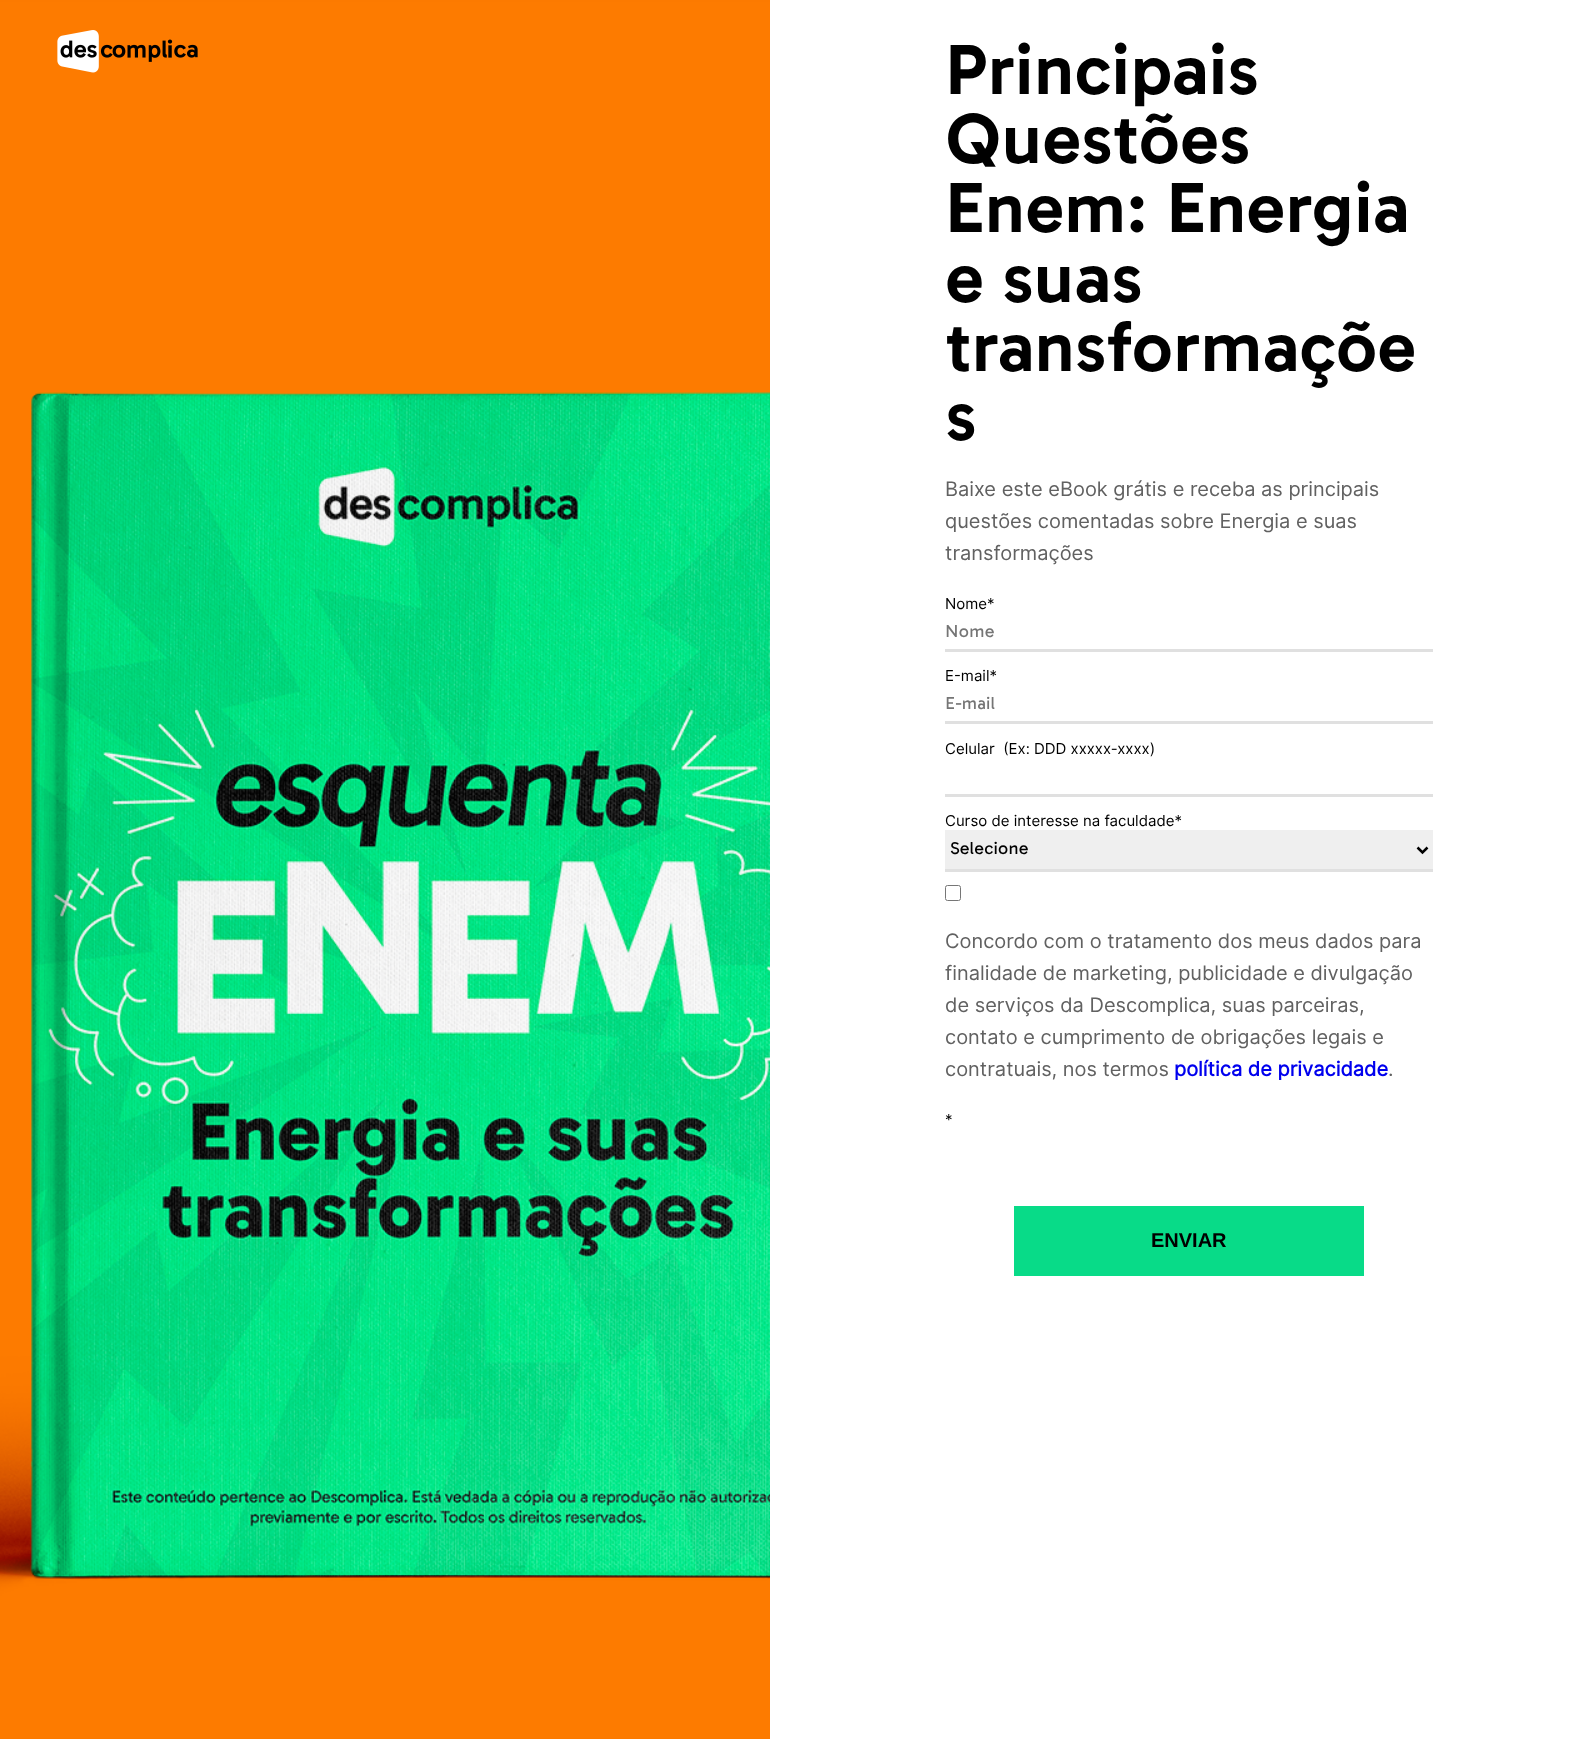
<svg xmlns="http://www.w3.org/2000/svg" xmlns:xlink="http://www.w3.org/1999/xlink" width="1573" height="1739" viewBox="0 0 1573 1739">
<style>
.cls-1{font:bold 70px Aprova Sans;fill:#000000}
.cls-2{font:20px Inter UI;fill:#616161}
.cls-3{font:15px Inter UI;fill:#000000}
.cls-4{font:17.5px Aprova Sans;fill:#757575}
.cls-5{font:17.5px Aprova Sans;fill:#000000}
.cls-6{font:bold 20px Inter UI;fill:#0000ee}
.cls-7{font:bold 20px Liberation Sans;fill:#000000}
</style>
<rect width="100%" height="100%" fill="#ffffff"/>
<image xlink:href="image1.png" x="0" y="0" width="770" height="1739"/>
<image xlink:href="image0.png" x="57" y="30" width="141" height="43"/>
<rect fill="#e0e0e0" x="945" y="649" width="488" height="3"/>
<rect fill="#e0e0e0" x="945" y="721" width="488" height="3"/>
<rect fill="#e0e0e0" x="945" y="794" width="488" height="3"/>
<rect fill="#efefef" x="945" y="830" width="488" height="39"/>
<rect fill="#e0e0e0" x="945" y="869" width="488" height="3"/>
<path fill="none" stroke="#000000" stroke-width="2.5" d="M1417.5 847.5L1422.5 852.5L1427.5 847.5"/>
<rect fill="none" stroke="#767676" x="945.5" y="885.5" width="15" height="15" rx="2"/>
<rect fill="#08db88" x="1014" y="1206" width="350" height="70"/>
<text class="cls-1"><tspan x="945" y="94">Principais</tspan><tspan x="945" y="163">Questões</tspan><tspan x="945" y="232">Enem: Energia</tspan><tspan x="945" y="302">e suas</tspan><tspan x="945" y="371">transformaçõe</tspan><tspan x="945" y="440">s</tspan></text>
<text class="cls-2"><tspan x="945" y="496">Baixe este eBook grátis e receba as principais</tspan><tspan x="945" y="528">questões comentadas sobre Energia e suas</tspan><tspan x="945" y="560">transformações</tspan></text>
<text class="cls-3" x="945" y="609">Nome*</text>
<text class="cls-4" x="945" y="637">Nome</text>
<text class="cls-3" x="945" y="681">E-mail*</text>
<text class="cls-4" x="945" y="709">E-mail</text>
<text class="cls-3" xml:space="preserve" x="945" y="754">Celular  (Ex: DDD xxxxx-xxxx)</text>
<text class="cls-3" x="945" y="826">Curso de interesse na faculdade*</text>
<text class="cls-5" x="950" y="854">Selecione</text>
<text class="cls-2"><tspan x="945" y="948">Concordo com o tratamento dos meus dados para</tspan><tspan x="945" y="980">finalidade de marketing, publicidade e divulgação</tspan><tspan x="945" y="1012">de serviços da Descomplica, suas parceiras,</tspan><tspan x="945" y="1044">contato e cumprimento de obrigações legais e</tspan><tspan x="945" y="1076">contratuais, nos termos</tspan></text>
<text class="cls-6" x="1174" y="1076">política de privacidade</text>
<text class="cls-2" x="1388" y="1076">.</text>
<text class="cls-3" x="945" y="1125">*</text>
<text class="cls-7" x="1151" y="1247">ENVIAR</text>
</svg>
